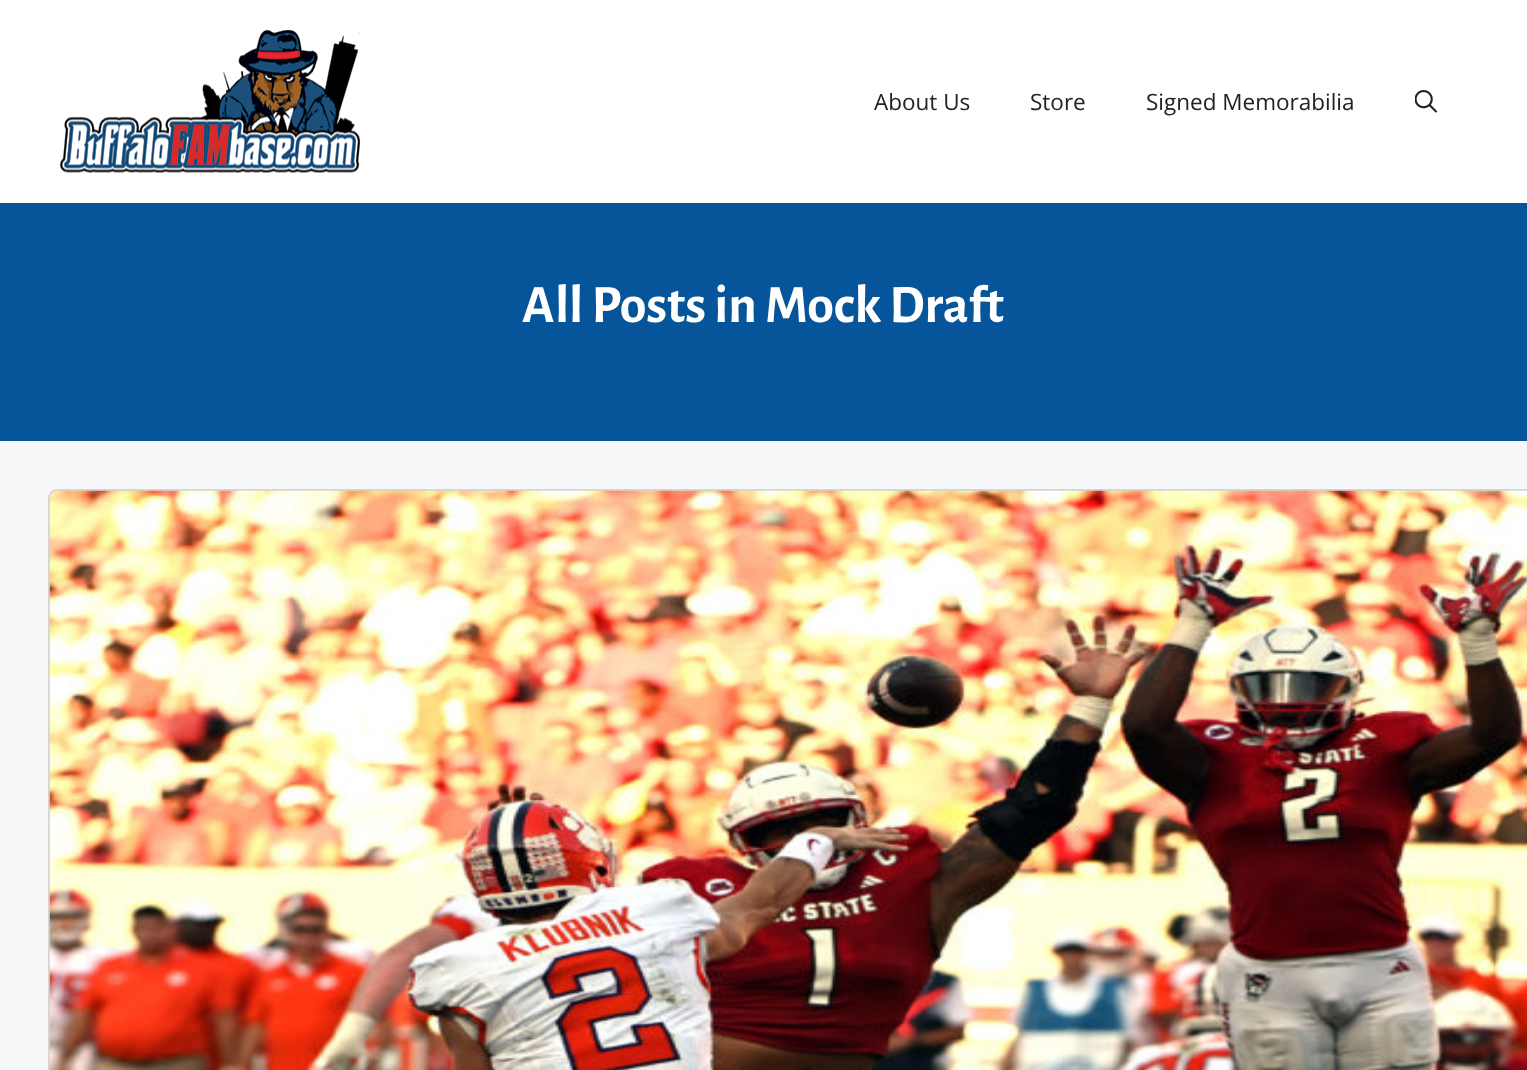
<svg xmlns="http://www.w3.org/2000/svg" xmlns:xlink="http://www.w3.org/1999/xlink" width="1527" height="1070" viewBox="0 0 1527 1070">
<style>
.cls-1{font:22.5px Open Sans;fill:#222222}
.cls-2{font:bold 54px Alegreya Sans;fill:#ffffff}
</style>
<rect width="100%" height="100%" fill="#f7f8f9"/>
<rect fill="#ffffff" x="0" y="0" width="1527" height="203"/>
<image xlink:href="image0.png" x="60" y="30" width="300" height="143"/>
<image xlink:href="image1.png" x="1415" y="90" width="22" height="23"/>
<rect fill="#065499" x="0" y="203" width="1527" height="238"/>
<rect fill="none" stroke="#d4d4d4" stroke-width="2" x="49" y="490" width="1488" height="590" rx="8"/>
<image xlink:href="image2.png" x="49" y="490" width="1478" height="580"/>
<text class="cls-1" x="874" y="110">About Us</text>
<text class="cls-1" x="1030" y="110">Store</text>
<text class="cls-1" x="1146" y="110">Signed Memorabilia</text>
<text class="cls-2" x="522" y="322">All Posts in Mock Draft</text>
</svg>
